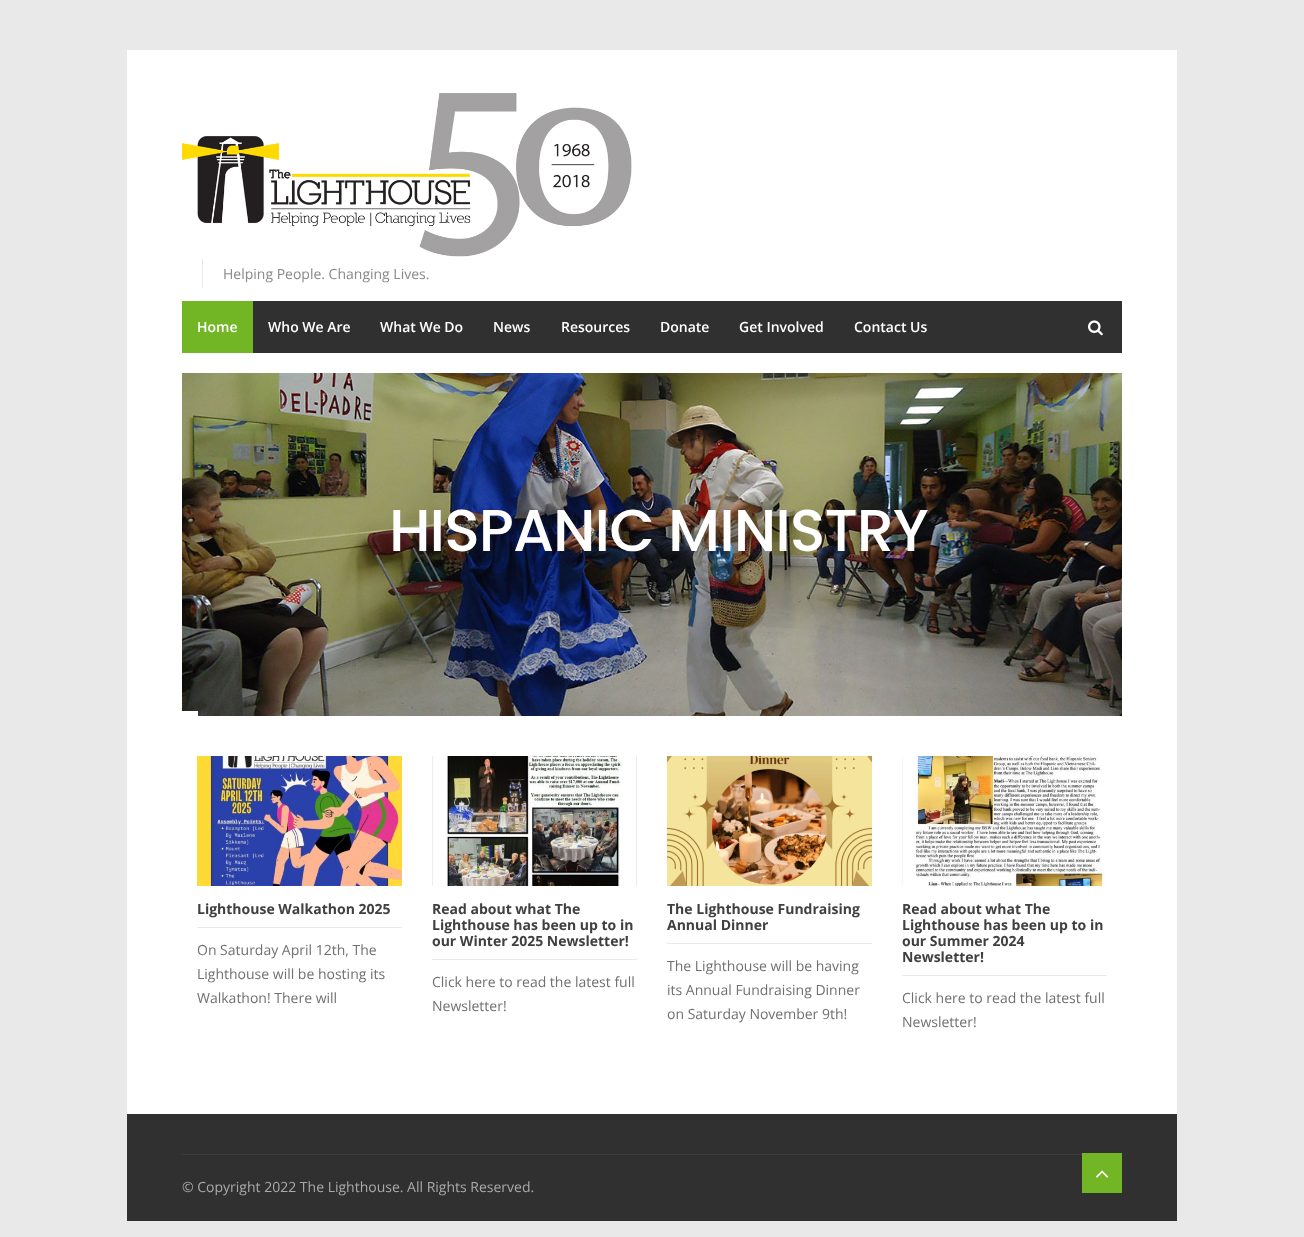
<svg xmlns="http://www.w3.org/2000/svg" xmlns:xlink="http://www.w3.org/1999/xlink" width="1304" height="1237" viewBox="0 0 1304 1237">
<style>
.cls-1{font:14px Open Sans;fill:#888888}
.cls-2{font:600 14px Open Sans;fill:#ffffff}
.cls-3{font:500 59px Poppins;letter-spacing:-1px;fill:#ffffff}
.cls-4{font:bold 14px Open Sans;fill:#404040}
.cls-5{font:14px Open Sans;fill:#707070}
.cls-6{font:14px Open Sans;fill:#aaaaaa}
</style>
<rect width="100%" height="100%" fill="#e9e9e9"/>
<rect fill="#ffffff" x="127" y="50" width="1050" height="1064"/>
<image xlink:href="image0.png" x="182" y="93" width="450" height="164"/>
<rect fill="#e9e9e9" x="202" y="259" width="1" height="29"/>
<rect fill="#303030" x="253" y="301" width="869" height="52"/>
<rect fill="#72b626" x="182" y="301" width="71" height="52"/>
<image xlink:href="image1.png" x="1088" y="320" width="15" height="16"/>
<image xlink:href="image2.png" x="182" y="373" width="940" height="343"/>
<rect fill="#ffffff" x="182" y="711" width="16" height="5"/>
<image xlink:href="image3.png" x="197" y="756" width="205" height="130"/>
<rect fill="#e9e9e9" x="197" y="927" width="205" height="1"/>
<image xlink:href="image4.png" x="432" y="756" width="205" height="130"/>
<rect fill="#e9e9e9" x="432" y="959" width="205" height="1"/>
<image xlink:href="image5.png" x="667" y="756" width="205" height="130"/>
<rect fill="#e9e9e9" x="667" y="943" width="205" height="1"/>
<image xlink:href="image6.png" x="902" y="756" width="205" height="130"/>
<rect fill="#e9e9e9" x="902" y="975" width="205" height="1"/>
<rect fill="#303030" x="127" y="1114" width="1050" height="107"/>
<rect fill="#3c3c3c" x="182" y="1154" width="900" height="1"/>
<rect fill="#72b626" x="1082" y="1153" width="40" height="40"/>
<image xlink:href="image7.png" x="1096" y="1170" width="13" height="8"/>
<text class="cls-1" x="223" y="279">Helping People. Changing Lives.</text>
<text class="cls-2" x="197" y="332">Home</text>
<text class="cls-2" x="268" y="332">Who We Are</text>
<text class="cls-2" x="380" y="332">What We Do</text>
<text class="cls-2" x="493" y="332">News</text>
<text class="cls-2" x="561" y="332">Resources</text>
<text class="cls-2" x="660" y="332">Donate</text>
<text class="cls-2" x="739" y="332">Get Involved</text>
<text class="cls-2" x="854" y="332">Contact Us</text>
<text class="cls-3" x="389" y="551">HISPANIC MINISTRY</text>
<text class="cls-4" x="197" y="914">Lighthouse Walkathon 2025</text>
<text class="cls-5"><tspan x="197" y="955">On Saturday April 12th, The</tspan><tspan x="197" y="979">Lighthouse will be hosting its</tspan><tspan x="197" y="1003">Walkathon! There will</tspan></text>
<text class="cls-4"><tspan x="432" y="914">Read about what The</tspan><tspan x="432" y="930">Lighthouse has been up to in</tspan><tspan x="432" y="946">our Winter 2025 Newsletter!</tspan></text>
<text class="cls-5"><tspan x="432" y="987">Click here to read the latest full</tspan><tspan x="432" y="1011">Newsletter!</tspan></text>
<text class="cls-4"><tspan x="667" y="914">The Lighthouse Fundraising</tspan><tspan x="667" y="930">Annual Dinner</tspan></text>
<text class="cls-5"><tspan x="667" y="971">The Lighthouse will be having</tspan><tspan x="667" y="995">its Annual Fundraising Dinner</tspan><tspan x="667" y="1019">on Saturday November 9th!</tspan></text>
<text class="cls-4"><tspan x="902" y="914">Read about what The</tspan><tspan x="902" y="930">Lighthouse has been up to in</tspan><tspan x="902" y="946">our Summer 2024</tspan><tspan x="902" y="962">Newsletter!</tspan></text>
<text class="cls-5"><tspan x="902" y="1003">Click here to read the latest full</tspan><tspan x="902" y="1027">Newsletter!</tspan></text>
<text class="cls-6" x="182" y="1192">© Copyright 2022 The Lighthouse. All Rights Reserved.</text>
</svg>
